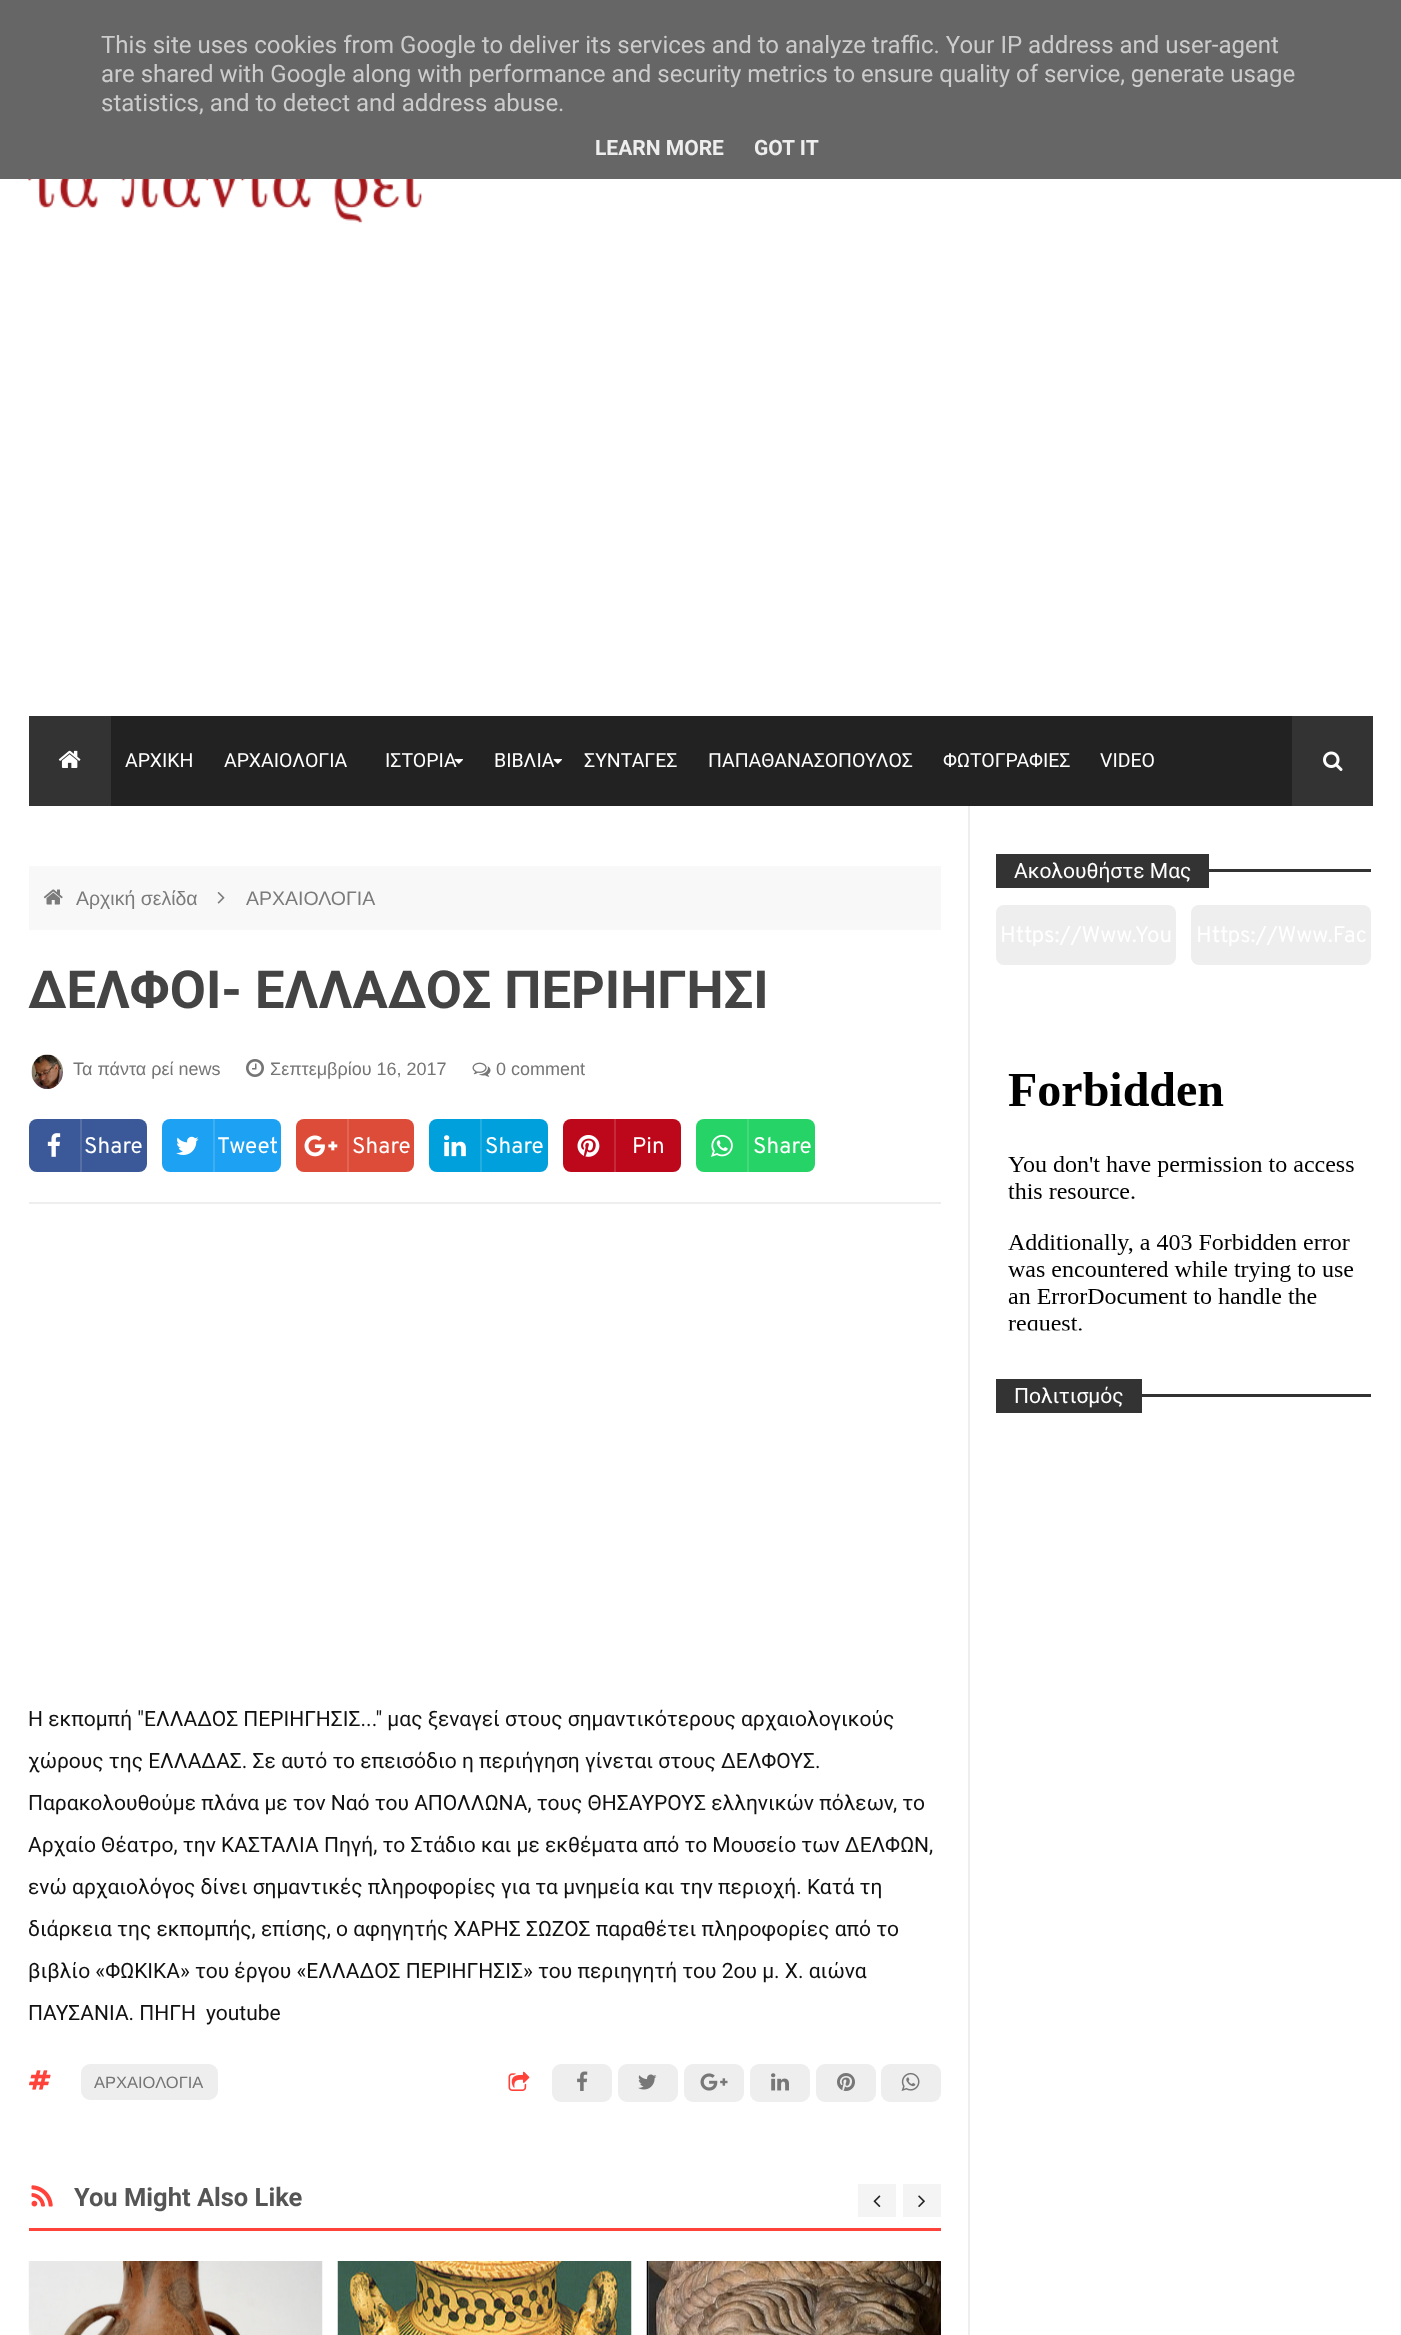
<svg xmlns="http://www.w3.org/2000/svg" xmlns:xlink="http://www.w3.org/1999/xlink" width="1401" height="2335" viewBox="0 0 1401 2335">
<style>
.cls-1{font:24px Roboto;fill:#cccccc}
.cls-2{font:bold 21px Roboto;fill:#eeeeee}
.cls-3{font:19.5px Roboto;fill:#ffffff}
.cls-4{font:19.5px Liberation Sans;fill:#7b7b7b}
.cls-5{font:bold 52.5px Roboto;fill:#444444}
.cls-6{font:18px Liberation Sans;fill:#757575}
.cls-7{font:22.5px Overpass;fill:#ffffff}
.cls-8{font:21px Roboto;fill:#111111}
.cls-9{font:16.5px Liberation Sans;fill:#757575}
.cls-10{font:bold 25.5px Roboto;fill:#555555}
.cls-11{font:21px Roboto;fill:#ffffff}
</style>
<rect width="100%" height="100%" fill="#ffffff"/>
<rect fill="#666666" x="0" y="0" width="1401" height="179"/>
<image xlink:href="image0.png" x="28" y="179" width="394" height="44"/>
<rect fill="#222222" x="111" y="716" width="1181" height="90"/>
<rect fill="#333333" x="29" y="716" width="82" height="90"/>
<image xlink:href="image1.png" x="58" y="750" width="23" height="18"/>
<rect fill="#333333" x="1292" y="716" width="81" height="90"/>
<image xlink:href="image4.png" x="1323" y="751" width="20" height="20"/>
<rect fill="#eeeeee" x="968" y="806" width="2" height="1529"/>
<rect fill="#f8f8f8" x="29" y="866" width="912" height="64"/>
<image xlink:href="image5.png" x="43" y="889" width="20" height="16"/>
<image xlink:href="image6.png" x="217" y="892" width="8" height="12"/>
<image xlink:href="image7.png" x="31" y="1054" width="32" height="35"/>
<image xlink:href="image8.png" x="246" y="1059" width="18" height="18"/>
<image xlink:href="image9.png" x="472" y="1062" width="19" height="15"/>
<rect fill="#eeeeee" x="29" y="1202" width="912" height="2"/>
<rect fill="#3b5998" x="29" y="1119" width="118" height="53" rx="8"/>
<rect fill="#5670a6" x="80" y="1119" width="2" height="53"/>
<image xlink:href="image10.png" x="47" y="1133" width="14" height="24"/>
<rect fill="#1da1f2" x="162" y="1119" width="119" height="53" rx="8"/>
<rect fill="#3daef4" x="213" y="1119" width="2" height="53"/>
<image xlink:href="image11.png" x="176" y="1136" width="23" height="19"/>
<rect fill="#dd4b39" x="296" y="1119" width="118" height="53" rx="8"/>
<rect fill="#e26455" x="347" y="1119" width="2" height="53"/>
<image xlink:href="image12.png" x="304" y="1135" width="34" height="22"/>
<rect fill="#00a0dc" x="429" y="1119" width="119" height="53" rx="8"/>
<rect fill="#24ade1" x="480" y="1119" width="2" height="53"/>
<image xlink:href="image13.png" x="444" y="1135" width="22" height="22"/>
<rect fill="#bd081c" x="563" y="1119" width="118" height="53" rx="8"/>
<rect fill="#c62b3c" x="614" y="1119" width="2" height="53"/>
<image xlink:href="image14.png" x="577" y="1135" width="23" height="22"/>
<rect fill="#25d366" x="696" y="1119" width="119" height="53" rx="8"/>
<rect fill="#44d97b" x="747" y="1119" width="2" height="53"/>
<image xlink:href="image15.png" x="711" y="1134" width="22" height="23"/>
<image xlink:href="image16.png" x="29" y="2070" width="22" height="20"/>
<rect fill="#eeeeee" stroke="#eeeeee" stroke-width="3" x="82.5" y="2065.5" width="134" height="33" rx="7.5"/>
<image xlink:href="image17.png" x="508" y="2071" width="22" height="20"/>
<rect fill="#eeeeee" x="552" y="2064" width="60" height="38" rx="9"/>
<image xlink:href="image18.png" x="577" y="2071" width="11" height="20"/>
<rect fill="#eeeeee" x="618" y="2064" width="60" height="38" rx="9"/>
<image xlink:href="image19.png" x="638" y="2074" width="19" height="16"/>
<rect fill="#eeeeee" x="684" y="2064" width="60" height="38" rx="9"/>
<image xlink:href="image20.png" x="700" y="2073" width="28" height="18"/>
<rect fill="#eeeeee" x="750" y="2064" width="60" height="38" rx="9"/>
<image xlink:href="image21.png" x="771" y="2073" width="18" height="18"/>
<rect fill="#eeeeee" x="816" y="2064" width="60" height="38" rx="9"/>
<image xlink:href="image22.png" x="837" y="2073" width="18" height="18"/>
<rect fill="#eeeeee" x="881" y="2064" width="60" height="38" rx="9"/>
<image xlink:href="image23.png" x="901" y="2072" width="19" height="19"/>
<rect fill="#ff423a" x="29" y="2228" width="912" height="3"/>
<image xlink:href="image24.png" x="31" y="2185" width="22" height="22"/>
<rect fill="#f4f4f4" x="858" y="2184" width="38" height="33"/>
<image xlink:href="image25.png" x="873" y="2195" width="8" height="12"/>
<rect fill="#f4f4f4" x="903" y="2184" width="38" height="33"/>
<image xlink:href="image26.png" x="918" y="2195" width="7" height="12"/>
<image xlink:href="image27.png" x="28" y="2261" width="295" height="74"/>
<image xlink:href="image28.png" x="337" y="2261" width="295" height="74"/>
<image xlink:href="image29.png" x="646" y="2261" width="295" height="74"/>
<rect fill="#333333" x="1209" y="869" width="162" height="3"/>
<rect fill="#333333" x="996" y="854" width="213" height="34"/>
<rect fill="#eeeeee" x="996" y="905" width="180" height="60" rx="8"/>
<rect fill="#eeeeee" x="1191" y="905" width="180" height="60" rx="8"/>
<image xlink:href="image30.png" x="1008" y="1072" width="346" height="259"/>
<rect fill="#333333" x="1142" y="1394" width="229" height="3"/>
<rect fill="#333333" x="996" y="1379" width="146" height="34"/>
<text class="cls-1"><tspan x="101" y="53">This site uses cookies from Google to deliver its services and to analyze traffic. Your IP address and user-agent</tspan><tspan x="101" y="82">are shared with Google along with performance and security metrics to ensure quality of service, generate usage</tspan><tspan x="101" y="111">statistics, and to detect and address abuse.</tspan></text>
<text class="cls-2" x="595" y="155">LEARN MORE</text>
<text class="cls-2" x="754" y="155">GOT IT</text>
<text class="cls-3" x="125" y="767">ΑΡΧΙΚΗ</text>
<text class="cls-3" x="224" y="767">ΑΡΧΑΙΟΛΟΓΙΑ</text>
<text class="cls-3" x="385" y="767">ΙΣΤΟΡΙΑ</text>
<image xlink:href="image2.png" x="454" y="759" width="9" height="5"/>
<text class="cls-3" x="494" y="767">ΒΙΒΛΙΑ</text>
<image xlink:href="image3.png" x="553" y="759" width="9" height="5"/>
<text class="cls-3" x="584" y="767">ΣΥΝΤΑΓΕΣ</text>
<text class="cls-3" x="708" y="767">ΠΑΠΑΘΑΝΑΣΟΠΟΥΛΟΣ</text>
<text class="cls-3" x="943" y="767">ΦΩΤΟΓΡΑΦΙΕΣ</text>
<text class="cls-3" x="1100" y="767">VIDEO</text>
<text class="cls-4" x="76" y="905">Αρχική σελίδα</text>
<text class="cls-4" x="246" y="905">ΑΡΧΑΙΟΛΟΓΙΑ</text>
<text class="cls-5" x="28" y="1008">ΔΕΛΦΟΙ- ΕΛΛΑΔΟΣ ΠΕΡΙΗΓΗΣΙ</text>
<text class="cls-6" x="73" y="1075">Τα πάντα ρεί news</text>
<text class="cls-6" x="270" y="1075">Σεπτεμβρίου 16, 2017</text>
<text class="cls-6" x="496" y="1075">0 comment</text>
<text class="cls-7" x="84" y="1153">Share</text>
<text class="cls-7" x="217" y="1153">Tweet</text>
<text class="cls-7" x="352" y="1153">Share</text>
<text class="cls-7" x="485" y="1153">Share</text>
<text class="cls-7" x="632" y="1153">Pin</text>
<text class="cls-7" x="753" y="1153">Share</text>
<text class="cls-8" x="28" y="1726">Η εκπομπή "ΕΛΛΑΔΟΣ ΠΕΡΙΗΓΗΣΙΣ..." μας ξεναγεί στους σημαντικότερους αρχαιολογικούς</text>
<text class="cls-8" x="28" y="1768">χώρους της ΕΛΛΑΔΑΣ. Σε αυτό το επεισόδιο η περιήγηση γίνεται στους ΔΕΛΦΟΥΣ.</text>
<text class="cls-8" x="28" y="1810">Παρακολουθούμε πλάνα με τον Ναό του ΑΠΟΛΛΩΝΑ, τους ΘΗΣΑΥΡΟΥΣ ελληνικών πόλεων, το</text>
<text class="cls-8" x="28" y="1852">Αρχαίο Θέατρο, την ΚΑΣΤΑΛΙΑ Πηγή, το Στάδιο και με εκθέματα από το Μουσείο των ΔΕΛΦΩΝ,</text>
<text class="cls-8" x="28" y="1894">ενώ αρχαιολόγος δίνει σημαντικές πληροφορίες για τα μνημεία και την περιοχή. Κατά τη</text>
<text class="cls-8" x="28" y="1936">διάρκεια της εκπομπής, επίσης, ο αφηγητής ΧΑΡΗΣ ΣΩΖΟΣ παραθέτει πληροφορίες από το</text>
<text class="cls-8" x="28" y="1978">βιβλίο «ΦΩΚΙΚΑ» του έργου «ΕΛΛΑΔΟΣ ΠΕΡΙΗΓΗΣΙΣ» του περιηγητή του 2ου μ. Χ. αιώνα</text>
<text class="cls-8" x="28" y="2020">ΠΑΥΣΑΝΙΑ. ΠΗΓΗ</text>
<text class="cls-8" x="206" y="2020">youtube</text>
<text class="cls-9" x="94" y="2088">ΑΡΧΑΙΟΛΟΓΙΑ</text>
<text class="cls-10" x="74" y="2206">You Might Also Like</text>
<text class="cls-11" x="1014" y="878">Ακολουθήστε Μας</text>
<text class="cls-7" x="1000" y="942">Https://Www.You</text>
<text class="cls-7" x="1196" y="942">Https://Www.Fac</text>
<text class="cls-11" x="1014" y="1403">Πολιτισμός</text>
</svg>
